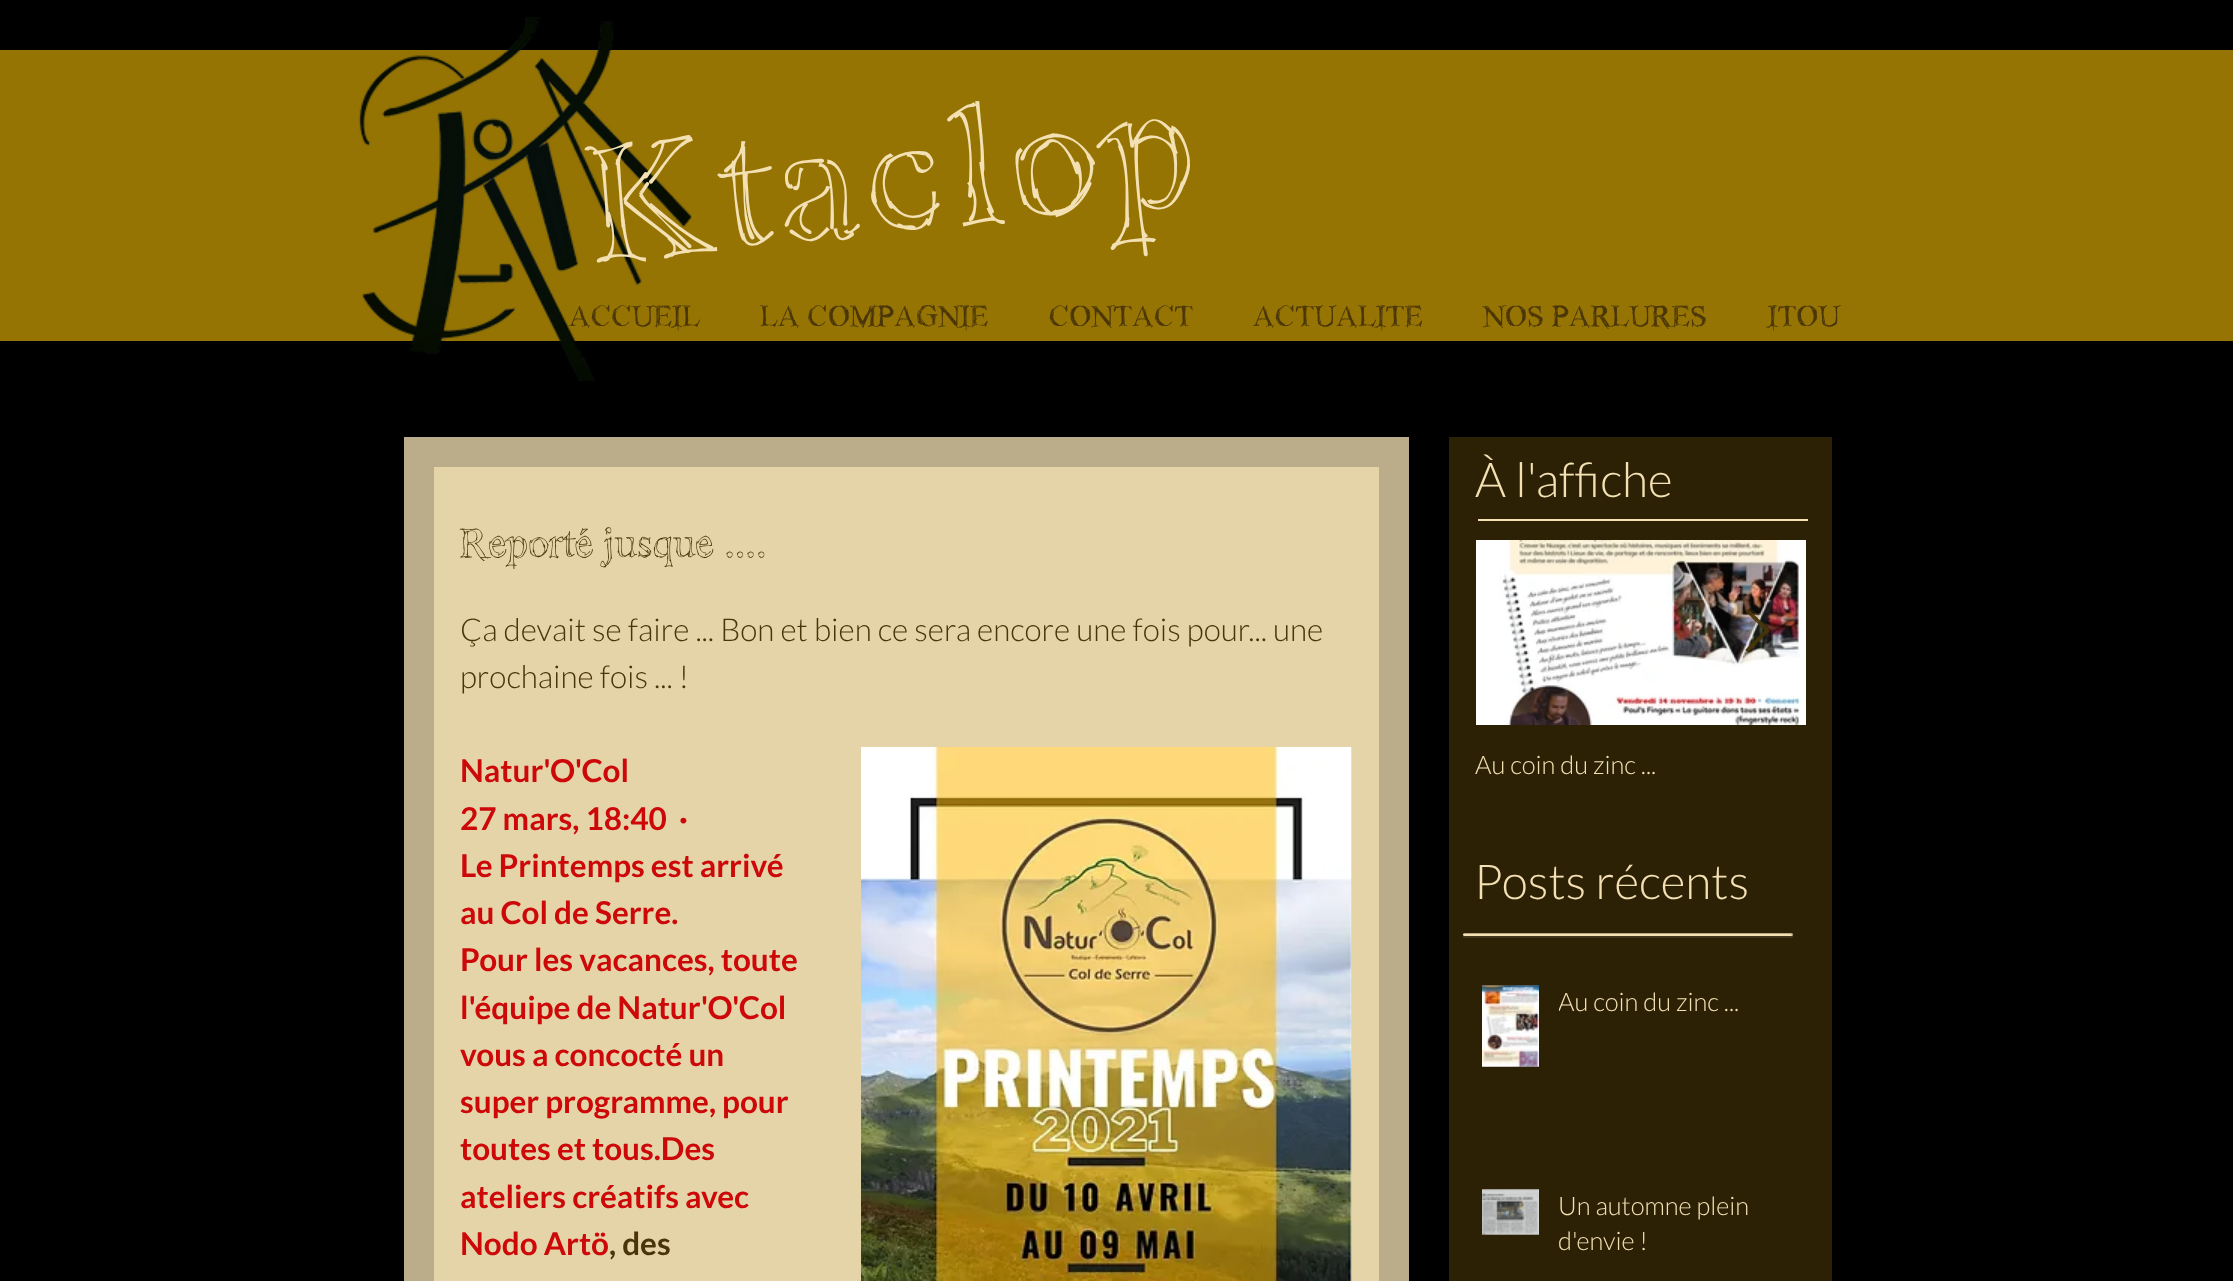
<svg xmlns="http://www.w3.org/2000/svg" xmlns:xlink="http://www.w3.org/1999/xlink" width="2233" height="1281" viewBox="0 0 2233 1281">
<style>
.cls-1{font:bold 34.5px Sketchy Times;fill:#493508}
.cls-2{font:198px Sketchy Times;letter-spacing:10px;fill:#f3e0b3}
.cls-3{font:300 48px Lato;fill:#f3e0b3}
.cls-4{font:48px Sketchy Times;fill:#493508}
.cls-5{font:300 31.5px Lato;fill:#493508}
.cls-6{font:bold 31.5px Lato;fill:#cc0808}
.cls-7{font:bold 31.5px Lato;fill:#493508}
.cls-8{font:300 25.5px Lato;fill:#f3e0b3}
</style>
<defs>
<clipPath id="clip1"><rect x="1559" y="984" width="216" height="36"/></clipPath>
</defs>
<rect width="100%" height="100%" fill="#000000"/>
<rect fill="#967404" x="0" y="50" width="2233" height="291"/>
<rect fill="#2c2005" x="1449" y="437" width="383" height="844"/>
<rect fill="#f3e0b3" x="1478" y="519" width="330" height="2"/>
<rect fill="#bbac8a" x="404" y="437" width="1005" height="844"/>
<rect fill="#e6d4a9" x="434" y="467" width="945" height="814"/>
<image xlink:href="image1.png" x="861" y="747" width="491" height="534"/>
<image xlink:href="image3.png" x="1477" y="540" width="329" height="185"/>
<path fill="#493508" fill-opacity="0.9" d="M1746 611L1748 609L1769 630L1748 652L1746 650L1766 630Z"/>
<path fill="none" stroke="#493508" stroke-opacity="0.9" stroke-width="1.2" d="M1746 611L1748 609.5L1769 630.5L1748 651.5L1746 650L1765.5 630.5Z"/>
<image xlink:href="image2.png" x="1476" y="540" width="1" height="185"/>
<path fill="#41361e" d="M1463 936C1463 937 1463 938 1464 938H1792C1793 938 1794 936 1792 935L1791 936Z"/>
<rect fill="#f3e0b3" x="1463" y="933" width="330" height="3" rx="1.5"/>
<path fill="#000000" fill-opacity="0.25" d="M1464 934H1791L1792 936C1794 935 1793 933 1792 933H1464L1463 934Z"/>
<image xlink:href="image4.png" x="1482" y="985" width="57" height="82"/>
<image xlink:href="image5.png" x="1482" y="985" width="57" height="82"/>
<image xlink:href="image6.png" x="1482" y="1189" width="57" height="46"/>
<image xlink:href="image7.png" x="1482" y="1189" width="57" height="46"/>
<text class="cls-1" x="569" y="326">ACCUEIL</text>
<image xlink:href="image0.png" x="358" y="17" width="334" height="364"/>
<text class="cls-2" x="596" y="263" transform="rotate(-5.9 596 263)">Ktaclop</text>
<text class="cls-1" x="760" y="326">LA COMPAGNIE</text>
<text class="cls-1" x="1049" y="326">CONTACT</text>
<text class="cls-1" x="1253" y="326">ACTUALITE</text>
<text class="cls-1" x="1483" y="326">NOS PARLURES</text>
<text class="cls-1" x="1768" y="326">ITOU</text>
<text class="cls-3" x="1475" y="497">À l'affiche</text>
<text class="cls-4" x="460" y="557">Reporté jusque ....</text>
<text class="cls-5"><tspan x="460" y="641">Ça devait se faire ... Bon et bien ce sera encore une fois pour... une</tspan><tspan x="460" y="688">prochaine fois ... !</tspan></text>
<text class="cls-6" xml:space="preserve"><tspan x="460" y="782">Natur'O'Col</tspan><tspan x="460" y="830">27 mars, 18:40  ·</tspan><tspan x="460" y="877">Le Printemps est arrivé</tspan><tspan x="460" y="924">au Col de Serre.</tspan><tspan x="460" y="971">Pour les vacances, toute</tspan><tspan x="460" y="1019">l'équipe de Natur'O'Col</tspan><tspan x="460" y="1066">vous a concocté un</tspan><tspan x="460" y="1113">super programme, pour</tspan><tspan x="460" y="1160">toutes et tous.Des</tspan><tspan x="460" y="1208">ateliers créatifs avec</tspan><tspan x="460" y="1255">Nodo Artö</tspan></text>
<text class="cls-7" x="609" y="1255">, des</text>
<text class="cls-8" x="1475" y="774">Au coin du zinc ...</text>
<text class="cls-3" x="1474" y="899">Posts récents</text>
<g clip-path="url(#clip1)">
<text class="cls-8" x="1558" y="1011">Au coin du zinc ...</text>
</g>
<text class="cls-8"><tspan x="1558" y="1215">Un automne plein</tspan><tspan x="1558" y="1250">d'envie !</tspan></text>
</svg>
